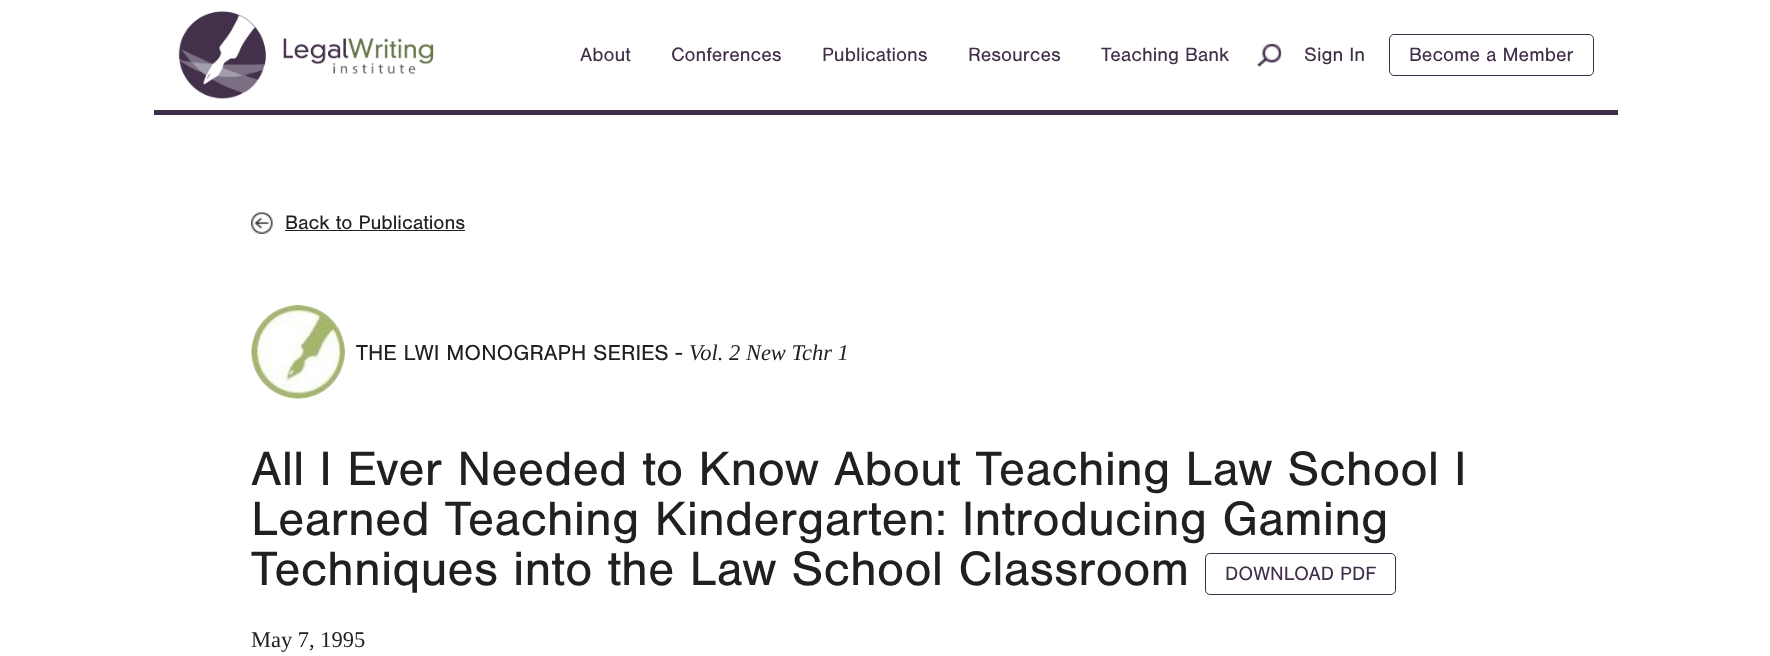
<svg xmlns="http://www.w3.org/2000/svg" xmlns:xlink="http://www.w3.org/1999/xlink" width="1770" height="656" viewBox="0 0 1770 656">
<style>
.cls-1{font:20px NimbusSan;fill:#412e48}
.cls-2{font:20.25px NimbusSan;fill:#20201f}
.cls-3{font:22.5px NimbusSan;fill:#20201f}
.cls-4{font:italic 22.5px Liberation Serif;fill:#20201f}
.cls-5{font:50px NimbusSan;fill:#20201f}
.cls-6{font:22.5px Liberation Serif;fill:#20201f}
</style>
<rect width="100%" height="100%" fill="#ffffff"/>
<rect fill="#412e48" x="154" y="110" width="1464" height="5"/>
<image xlink:href="image0.png" x="178" y="11" width="256" height="88"/>
<image xlink:href="image1.png" x="1257" y="43" width="25" height="24"/>
<rect fill="none" stroke="#412e48" x="1389.5" y="34.5" width="204" height="41" rx="4.5"/>
<image xlink:href="image2.png" x="251" y="212" width="22" height="22"/>
<rect fill="#20201f" x="285" y="230" width="180" height="1"/>
<image xlink:href="image3.png" x="251" y="305" width="94" height="94"/>
<rect fill="none" stroke="#412e48" x="1205.5" y="553.5" width="190" height="41" rx="4.5"/>
<text class="cls-1" x="580" y="61">About</text>
<text class="cls-1" x="671" y="61">Conferences</text>
<text class="cls-1" x="822" y="61">Publications</text>
<text class="cls-1" x="968" y="61">Resources</text>
<text class="cls-1" x="1101" y="61">Teaching Bank</text>
<text class="cls-1" x="1304" y="61">Sign In</text>
<text class="cls-1" x="1409" y="61">Become a Member</text>
<text class="cls-2" x="285" y="229">Back to Publications</text>
<text class="cls-3" x="356" y="360">THE LWI MONOGRAPH SERIES -</text>
<text class="cls-4" x="689" y="360">Vol. 2 New Tchr 1</text>
<text class="cls-5"><tspan x="251" y="485">All I Ever Needed to Know About Teaching Law School I</tspan><tspan x="251" y="535">Learned Teaching Kindergarten: Introducing Gaming</tspan><tspan x="251" y="585">Techniques into the Law School Classroom</tspan></text>
<text class="cls-1" x="1225" y="580">DOWNLOAD PDF</text>
<text class="cls-6" x="251" y="647">May 7, 1995</text>
</svg>
